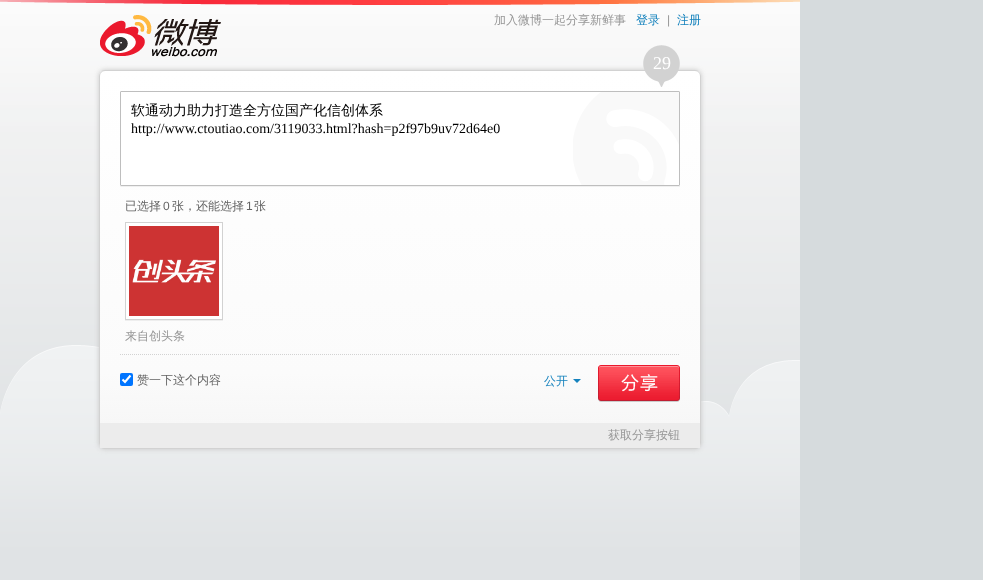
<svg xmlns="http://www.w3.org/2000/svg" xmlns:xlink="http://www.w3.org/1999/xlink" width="983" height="580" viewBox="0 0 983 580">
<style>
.cls-1{font:500 12px WenQuanYi Zen Hei;fill:#969696}
.cls-2{font:500 12px WenQuanYi Zen Hei;fill:#1582bd}
.cls-3{font:12px Liberation Sans;fill:#969696}
.cls-4{font:18px Liberation Serif;fill:#ffffff}
.cls-5{font:500 14px WenQuanYi Zen Hei;fill:#000000}
.cls-6{font:14px Liberation Serif;fill:#000000}
.cls-7{font:500 12px WenQuanYi Zen Hei;fill:#646464}
.cls-8{font:12px Liberation Sans;fill:#646464}
</style>
<defs>
<clipPath id="clip1"><rect x="99" y="70" width="602" height="379" rx="6"/></clipPath>
<linearGradient id="g1" gradientUnits="userSpaceOnUse" x1="400" y1="71" x2="400" y2="448"><stop offset="0" stop-color="#ffffff"/><stop offset="0.8" stop-color="#fbfbfb"/><stop offset="1" stop-color="#f5f5f5"/></linearGradient>
</defs>
<rect width="100%" height="100%" fill="#d6dbdd"/>
<image xlink:href="image0.png" x="0" y="0" width="800" height="416"/>
<image xlink:href="image1.png" x="0" y="0" width="800" height="5"/>
<image xlink:href="image2.png" x="100" y="15" width="121" height="42"/>
<image xlink:href="image7.png" x="0" y="345" width="800" height="235"/>
<rect fill="#c6c6c6" filter="blur(2.5px)" x="99" y="70" width="602" height="379" rx="6"/>
<g clip-path="url(#clip1)">
<rect fill="url(#g1)" x="99" y="71" width="602" height="376"/>
</g>
<rect fill="none" stroke="#d2d2d2" x="99.5" y="70.5" width="601" height="378" rx="5.5"/>
<image xlink:href="image3.png" x="643" y="45" width="37" height="42"/>
<path fill="#f0f0f0" d="M120 185C120 186 120 187 121 187H680V185L679 186H121Z"/>
<rect fill="#ffffff" x="120" y="91" width="560" height="95" rx="1"/>
<image xlink:href="image4.png" x="573" y="92" width="106" height="93"/>
<rect fill="none" stroke="#bebebe" x="120.5" y="91.5" width="559" height="94" rx="0.5"/>
<path fill="none" stroke="#d2d2d2" stroke-dasharray="1 1" d="M120 354.5H680"/>
<rect fill="#eeeeee" filter="blur(0.5px)" x="125" y="223" width="98" height="98"/>
<rect fill="#ffffff" stroke="#d2d2d2" x="125.5" y="222.5" width="97" height="97"/>
<image xlink:href="image5.png" x="129" y="226" width="90" height="90"/>
<rect fill="#0075ff" x="120" y="373" width="13" height="13" rx="2"/>
<path fill="none" stroke="#ffffff" stroke-width="2.1" d="M122.5 379.5L125 382L130.5 375.5"/>
<path fill="#1582bd" d="M573 379H581L577 383Z"/>
<image xlink:href="image6.png" x="598" y="365" width="82" height="37"/>
<rect fill="#ececec" x="100" y="423" width="600" height="25"/>
<text class="cls-1" x="494" y="24">加入微博一起分享新鲜事</text>
<text class="cls-2" x="636" y="24">登录</text>
<text class="cls-3" x="667" y="24">|</text>
<text class="cls-2" x="677" y="24">注册</text>
<text class="cls-4" x="653" y="69">29</text>
<text class="cls-5" x="131" y="115">软通动力助力打造全方位国产化信创体系</text>
<text class="cls-6" x="131" y="133">http://www.ctoutiao.com/3119033.html?hash=p2f97b9uv72d64e0</text>
<text class="cls-7" x="125" y="210">已选择</text>
<text class="cls-8" x="163" y="210">0</text>
<text class="cls-7" x="172" y="210">张，还能选择</text>
<text class="cls-8" x="246" y="210">1</text>
<text class="cls-7" x="254" y="210">张</text>
<text class="cls-1" x="125" y="340">来自创头条</text>
<text class="cls-7" x="137" y="384">赞一下这个内容</text>
<text class="cls-2" x="544" y="385">公开</text>
<text class="cls-1" x="608" y="439">获取分享按钮</text>
</svg>
